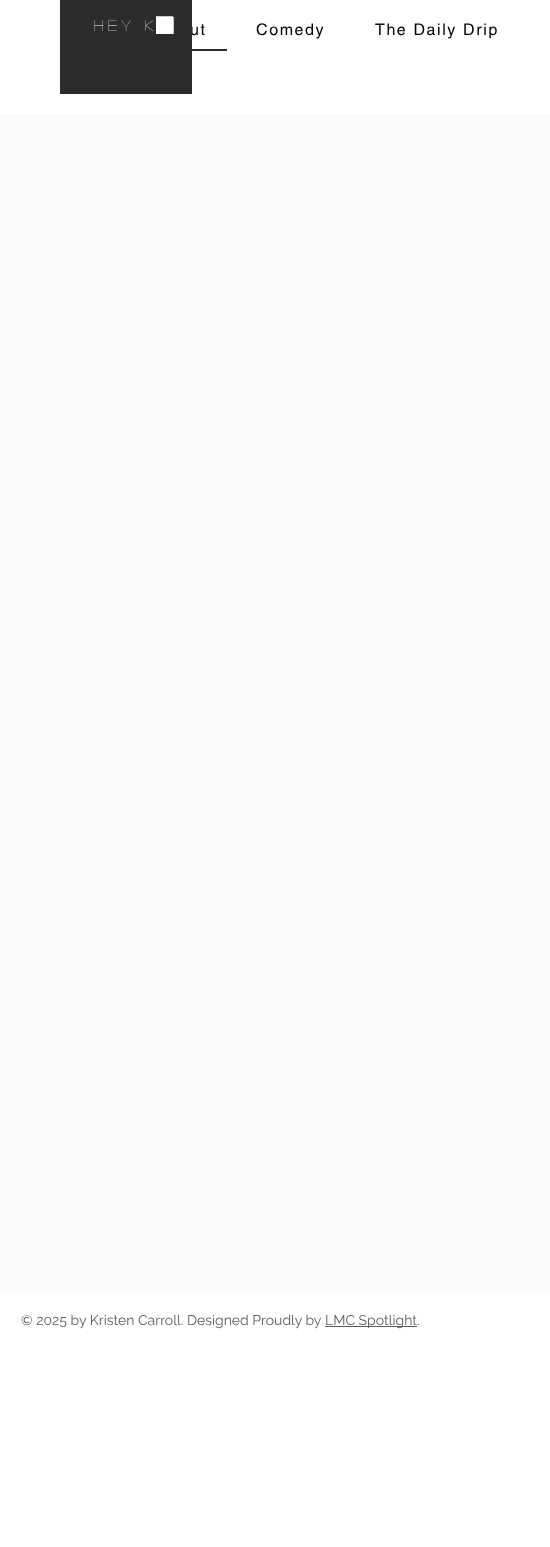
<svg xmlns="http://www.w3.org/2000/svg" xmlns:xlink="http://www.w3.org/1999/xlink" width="550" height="1547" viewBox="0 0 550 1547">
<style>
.cls-1{font:16px helvetica;letter-spacing:1.6px;fill:#000000}
.cls-2{font:15px 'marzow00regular';letter-spacing:4.5px;fill:#ffffff}
.cls-3{font:14px Raleway;fill:#5e5d5d}
</style>
<rect width="100%" height="100%" fill="#ffffff"/>
<rect fill="#2c2c2b" x="192" y="49" width="35" height="2"/>
<rect fill="#fafafa" x="0" y="114" width="550" height="1179"/>
<rect fill="#5e5d5d" x="325" y="1326" width="92" height="1"/>
<text class="cls-1" x="190" y="35">ut</text>
<rect fill="#2c2c2b" x="60" y="0" width="132" height="94"/>
<rect fill="#ffffff" x="156" y="17" width="17" height="17"/>
<path fill="none" stroke="#ffffff" d="M156 17H173V34V17Z"/>
<text class="cls-2" x="94" y="31">Hey k</text>
<text class="cls-1" x="256" y="35">Comedy</text>
<text class="cls-1" x="375" y="35">The Daily Drip</text>
<text class="cls-3" x="21" y="1325">© 2025 by Kristen Carroll. Designed Proudly by</text>
<text class="cls-3" x="325" y="1325">LMC Spotlight.</text>
</svg>
